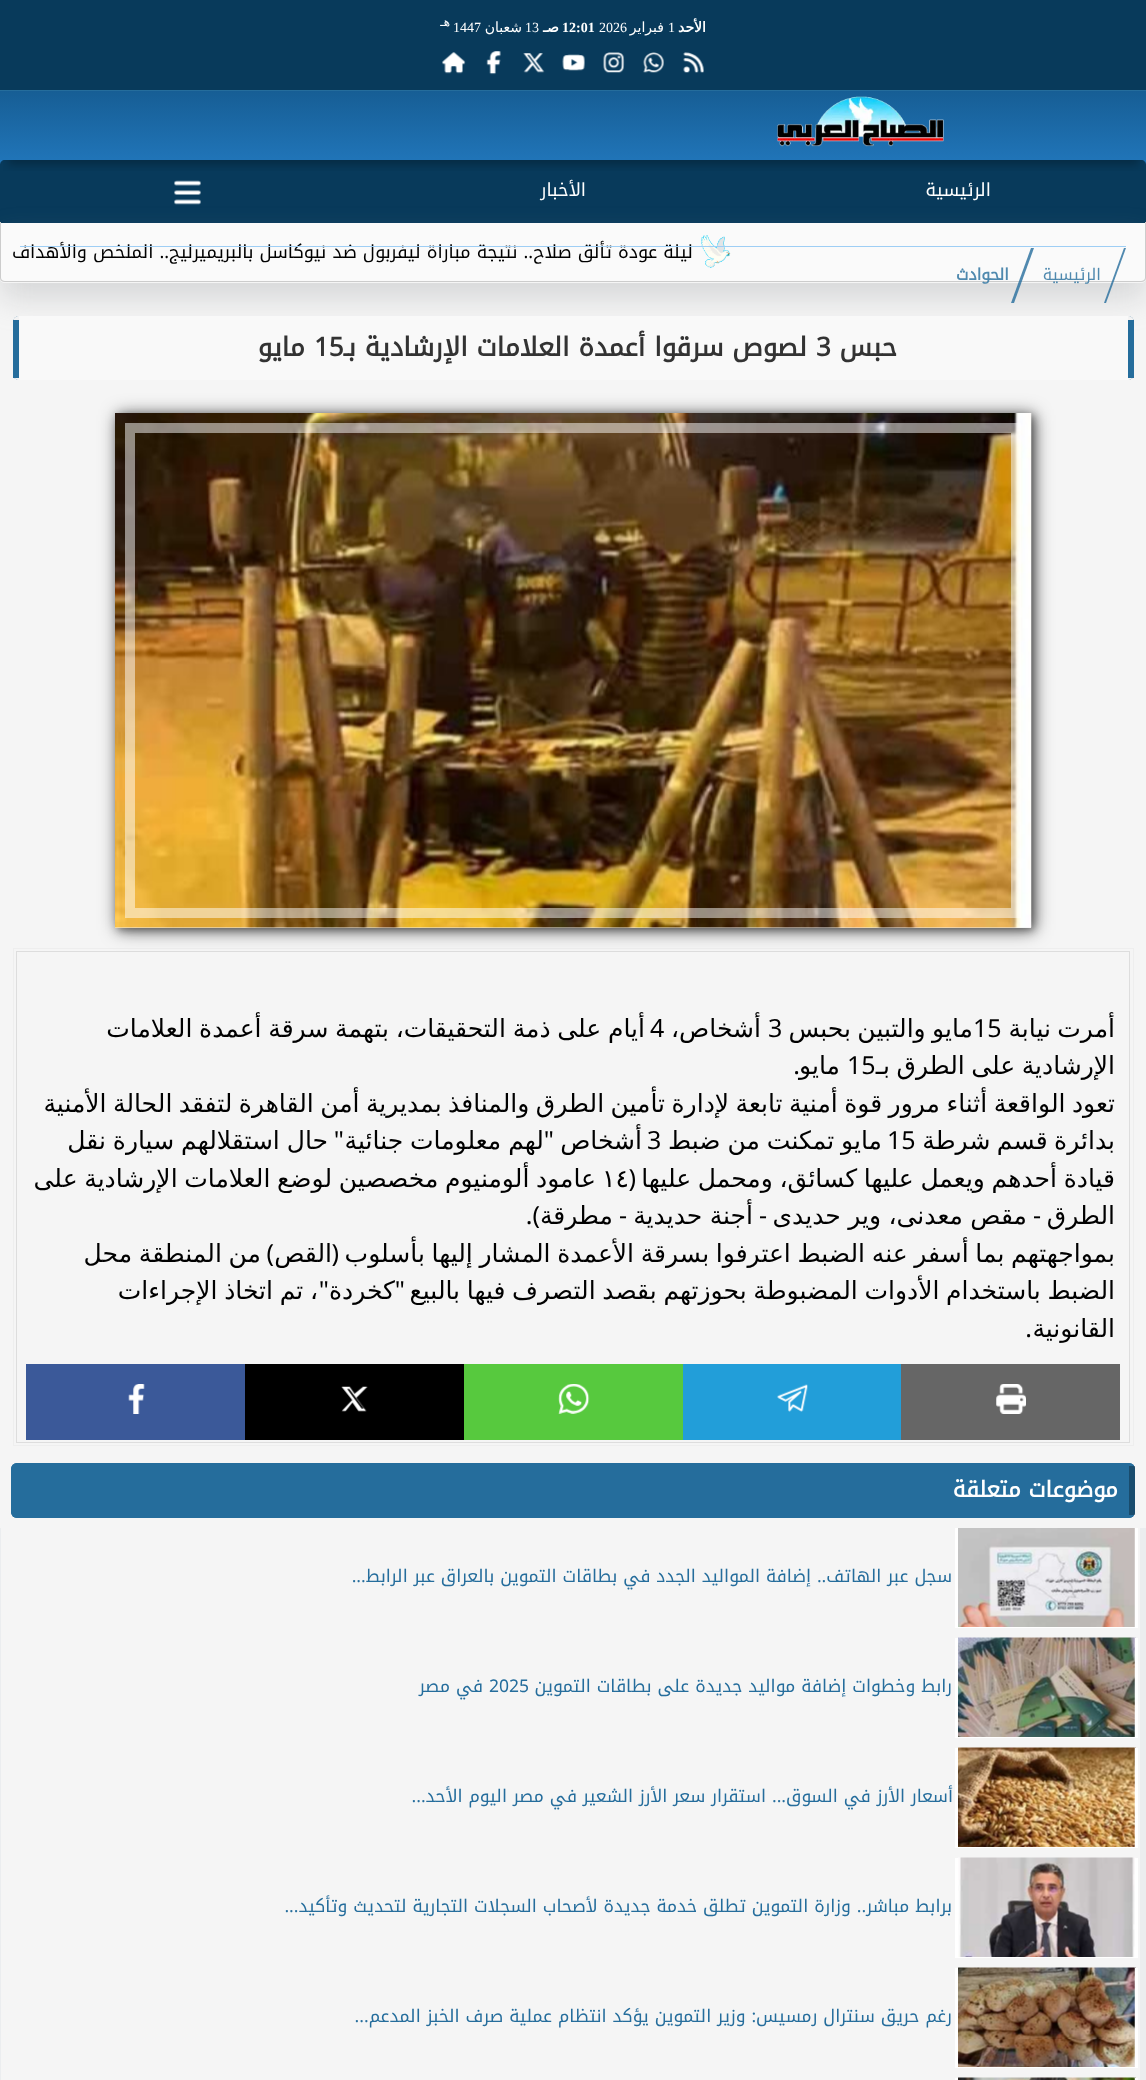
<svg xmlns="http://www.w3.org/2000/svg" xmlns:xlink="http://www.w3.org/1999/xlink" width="1146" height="2080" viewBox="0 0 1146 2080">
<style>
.cls-1{font:bold 14px DejaVu Sans;direction:rtl;fill:#ffffff}
.cls-2{font:14px Liberation Serif;fill:#ffffff}
.cls-3{font:14px DejaVu Sans;direction:rtl;fill:#ffffff}
.cls-4{font:bold 14px Liberation Serif;fill:#ffffff}
.cls-5{font:12px DejaVu Sans;direction:rtl;fill:#ffffff}
.cls-6{font:18px Noto Kufi Arabic;direction:rtl;fill:#ffffff}
.cls-7{font:18px Noto Kufi Arabic;direction:rtl;fill:#000000}
.cls-8{font:16px Noto Kufi Arabic;direction:rtl;fill:#4f89ae}
.cls-9{font:bold 16px Noto Kufi Arabic;direction:rtl;fill:#4f89ae}
.cls-10{font:bold 26px Noto Kufi Arabic;direction:rtl;fill:#333333}
.cls-11{font:bold 26px Noto Kufi Arabic;fill:#333333}
.cls-12{font:25px DejaVu Sans;direction:rtl;fill:#000000}
.cls-13{font:25px Noto Sans;fill:#000000}
.cls-14{font:25px Noto Sans;direction:rtl;fill:#000000}
.cls-15{font:25px DejaVu Sans;fill:#000000}
.cls-16{font:bold 22px Noto Kufi Arabic;direction:rtl;fill:#ffffff}
.cls-17{font:17.5px Noto Kufi Arabic;direction:rtl;fill:#256d9c}
.cls-18{font:17.5px Noto Kufi Arabic;fill:#256d9c}
</style>
<defs>
<linearGradient id="g1" gradientUnits="userSpaceOnUse" x1="573" y1="0" x2="573" y2="223"><stop offset="0" stop-color="#0a4066"/><stop offset="1" stop-color="#2989d8"/></linearGradient>
<clipPath id="clip1"><rect x="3" y="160" width="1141" height="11"/></clipPath>
<clipPath id="clip2"><path d="M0 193H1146V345H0ZM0 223H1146V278C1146 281 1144 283 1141 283H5C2 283 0 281 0 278Z" clip-rule="evenodd"/></clipPath>
<clipPath id="clip3"><path d="M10 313H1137V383H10ZM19 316H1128C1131.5 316 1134 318.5 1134 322V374C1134 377.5 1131.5 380 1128 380H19C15.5 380 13 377.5 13 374V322C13 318.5 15.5 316 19 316Z" clip-rule="evenodd"/></clipPath>
<clipPath id="clip4"><rect x="1" y="1528" width="1139" height="100"/></clipPath>
<clipPath id="clip5"><rect x="1" y="1638" width="1139" height="100"/></clipPath>
<clipPath id="clip6"><rect x="1" y="1748" width="1139" height="100"/></clipPath>
<clipPath id="clip7"><rect x="1" y="1858" width="1139" height="100"/></clipPath>
<clipPath id="clip8"><rect x="1" y="1968" width="1139" height="100"/></clipPath>
<clipPath id="clip9"><rect x="1" y="2078" width="1139" height="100"/></clipPath>
</defs>
<rect width="100%" height="100%" fill="#f5f5f5"/>
<rect fill="url(#g1)" x="0" y="91" width="1146" height="74"/>
<rect fill="#083a5b" x="0" y="0" width="1146" height="90"/>
<rect fill="#256d9c" x="0" y="90" width="1146" height="1"/>
<image xlink:href="image0.png" x="683" y="52" width="21" height="21"/>
<image xlink:href="image1.png" x="643" y="52" width="21" height="21"/>
<image xlink:href="image2.png" x="603" y="52" width="22" height="21"/>
<image xlink:href="image3.png" x="562" y="54" width="23" height="17"/>
<image xlink:href="image4.png" x="523" y="53" width="22" height="20"/>
<image xlink:href="image5.png" x="486" y="51" width="15" height="24"/>
<image xlink:href="image6.png" x="442" y="52" width="24" height="22"/>
<path fill="#083a5b" d="M5 160H1141C1144 160 1146 162 1146 165V223H0V165C0 162 2 160 5 160Z"/>
<g clip-path="url(#clip1)">
<rect fill="#000000" fill-opacity="0.25" filter="blur(4px)" x="8" y="111" width="1131" height="54"/>
</g>
<image xlink:href="image7.png" x="777" y="96" width="167" height="51"/>
<image xlink:href="image8.png" x="174" y="180" width="27" height="25"/>
<g clip-path="url(#clip2)">
<rect fill="#999da0" fill-opacity="0.32" filter="blur(15px)" x="0" y="239" width="1146" height="60" rx="5"/>
</g>
<path fill="#fafafa" d="M1 223H1145V277C1145 279 1143 281 1141 281H5C3 281 1 279 1 277Z"/>
<path fill="#cccccc" fill-rule="evenodd" d="M0 222H1146V278C1146 280 1144 282 1141 282H5C2 282 0 280 0 278ZM1 222H1145V278C1145 280 1143 281 1141 281H5C3 281 1 280 1 278Z"/>
<image xlink:href="image9.png" x="701" y="235" width="30" height="33"/>
<path fill="#256d9c" fill-opacity="0.8" d="M1124 248H1126L1106 303H1104Z"/>
<path fill="#256d9c" fill-opacity="0.8" d="M1031 248H1034L1014 303H1011Z"/>
<g clip-path="url(#clip3)">
<rect fill="#256d9c" filter="blur(0.5px)" x="13" y="316" width="1121" height="64" rx="6"/>
</g>
<rect fill="#f9f9f9" x="19" y="316" width="1109" height="64"/>
<rect fill="#256d9c" x="1128" y="320" width="6" height="58"/>
<rect fill="#256d9c" x="13" y="320" width="6" height="58"/>
<rect fill="none" stroke="#eeeeee" x="13.5" y="948.5" width="1120" height="497"/>
<rect fill="none" stroke="#dddddd" x="16.5" y="951.5" width="1113" height="491"/>
<rect fill="#000000" fill-opacity="0.5" filter="blur(9.5px)" x="118" y="415" width="916" height="515"/>
<rect fill="#000000" fill-opacity="0.35" filter="blur(6px)" x="118" y="415" width="916" height="515"/>
<rect fill="#000000" fill-opacity="0.2" filter="blur(3px)" x="118" y="415" width="916" height="515"/>
<rect fill="#f0f0f0" x="115" y="927" width="916" height="1"/>
<image xlink:href="image10.png" x="115" y="413" width="917" height="515"/>
<rect fill="none" stroke="#ffffff" stroke-opacity="0.5" stroke-width="10" x="130" y="428" width="886" height="485"/>
<rect fill="#666666" x="901" y="1364" width="219" height="76"/>
<image xlink:href="image11.png" x="996" y="1384" width="30" height="30"/>
<rect fill="#229ed9" x="683" y="1364" width="218" height="76"/>
<image xlink:href="image12.png" x="777" y="1384" width="31" height="28"/>
<rect fill="#57c93e" x="464" y="1364" width="219" height="76"/>
<image xlink:href="image13.png" x="558" y="1384" width="32" height="30"/>
<rect fill="#000000" x="245" y="1364" width="219" height="76"/>
<image xlink:href="image14.png" x="341" y="1386" width="27" height="26"/>
<rect fill="#3b5999" x="26" y="1364" width="219" height="76"/>
<image xlink:href="image15.png" x="128" y="1384" width="17" height="30"/>
<rect fill="#256d9c" filter="blur(0.5px)" x="11" y="1463" width="1124" height="55" rx="6"/>
<rect fill="#256d9c" x="11" y="1463" width="1124" height="55" rx="6"/>
<rect fill="#000000" fill-opacity="0.3" x="1129" y="1466" width="6" height="49"/>
<rect fill="#ebedef" x="1140" y="1528" width="6" height="552"/>
<rect fill="#ebedef" x="0" y="1528" width="1" height="552"/>
<image xlink:href="image16.png" x="958" y="1528" width="177" height="99"/>
<g clip-path="url(#clip4)">
<rect fill="none" stroke="#ffffff" stroke-width="3" x="956.5" y="1526.5" width="180" height="102"/>
</g>
<image xlink:href="image17.png" x="958" y="1637" width="178" height="100"/>
<g clip-path="url(#clip5)">
<rect fill="none" stroke="#ffffff" stroke-width="3" x="956.5" y="1636.5" width="180" height="102"/>
</g>
<image xlink:href="image18.png" x="958" y="1747" width="178" height="100"/>
<g clip-path="url(#clip6)">
<rect fill="none" stroke="#ffffff" stroke-width="3" x="956.5" y="1746.5" width="180" height="102"/>
</g>
<image xlink:href="image19.png" x="958" y="1857" width="178" height="100"/>
<g clip-path="url(#clip7)">
<rect fill="none" stroke="#ffffff" stroke-width="3" x="956.5" y="1856.5" width="180" height="102"/>
</g>
<image xlink:href="image20.png" x="958" y="1967" width="178" height="100"/>
<g clip-path="url(#clip8)">
<rect fill="none" stroke="#ffffff" stroke-width="3" x="956.5" y="1966.5" width="180" height="102"/>
</g>
<image xlink:href="image21.png" x="958" y="2077" width="178" height="3"/>
<g clip-path="url(#clip9)">
<rect fill="none" stroke="#ffffff" stroke-width="3" x="956.5" y="2076.5" width="180" height="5"/>
</g>
<text class="cls-1" x="706" y="32">الأحد</text>
<text class="cls-2" x="668" y="32">1</text>
<text class="cls-3" x="664" y="32">فبراير</text>
<text class="cls-2" x="599" y="32">2026</text>
<text class="cls-4" x="562" y="32">12:01</text>
<text class="cls-1" x="559" y="32">صـ</text>
<text class="cls-2" x="525" y="32">13</text>
<text class="cls-3" x="522" y="32">شعبان</text>
<text class="cls-2" x="453" y="32">1447</text>
<text class="cls-5" x="450" y="26">هـ</text>
<text class="cls-6" x="991" y="196">الرئيسية</text>
<text class="cls-6" x="586" y="196">الأخبار</text>
<text class="cls-7" x="693" y="258">ليلة عودة تألق صلاح.. نتيجة مباراة ليفربول ضد نيوكاسل بالبريميرليج.. الملخص والأهداف</text>
<rect fill="#9ecef5" x="20" y="246" width="1106" height="1"/>
<text class="cls-8" x="1101" y="280">الرئيسية</text>
<text class="cls-9" x="1009" y="280">الحوادث</text>
<text class="cls-10" x="897" y="356">حبس</text>
<text class="cls-11" x="816" y="356">3</text>
<text class="cls-10" x="807" y="356">لصوص سرقوا أعمدة العلامات الإرشادية بـ</text>
<text class="cls-11" x="314" y="356">15</text>
<text class="cls-10" x="305" y="356">مايو</text>
<text class="cls-12" x="1115" y="1037" word-spacing="-1.5">أمرت نيابة</text>
<text class="cls-13" x="973" y="1037">15</text>
<text class="cls-12" x="973" y="1037" word-spacing="-1.5">مايو والتبين بحبس</text>
<text class="cls-13" x="768" y="1037">3</text>
<text class="cls-12" x="761" y="1037">أشخاص،</text>
<text class="cls-12" x="645" y="1037" word-spacing="-1.25">أيام على ذمة التحقيقات، بتهمة سرقة أعمدة العلامات</text>
<text class="cls-13" x="650" y="1037">4</text>
<text class="cls-12" x="1115" y="1074" word-spacing="-1.5">الإرشادية على الطرق بـ</text>
<text class="cls-13" x="847" y="1074">15</text>
<text class="cls-12" x="840" y="1074">مايو</text>
<text class="cls-14" x="800" y="1074">.</text>
<text class="cls-12"><tspan x="1115" y="1112" word-spacing="-1.5">تعود الواقعة أثناء مرور قوة أمنية تابعة لإدارة تأمين الطرق والمنافذ بمديرية أمن القاهرة لتفقد الحالة الأمنية</tspan><tspan x="1115" y="1149" word-spacing="-1.5">بدائرة قسم شرطة</tspan></text>
<text class="cls-13" x="887" y="1149">15</text>
<text class="cls-12" x="882" y="1149" word-spacing="-1">مايو تمكنت من ضبط</text>
<text class="cls-13" x="647" y="1149">3</text>
<text class="cls-12" x="642" y="1149">أشخاص</text>
<text class="cls-14" x="554" y="1149">"</text>
<text class="cls-12" x="544" y="1149" word-spacing="-1">لهم معلومات جنائية</text>
<text class="cls-14" x="344" y="1149">"</text>
<text class="cls-12" x="328" y="1149" word-spacing="-1">حال استقلالهم سيارة نقل</text>
<text class="cls-12" x="1115" y="1187" word-spacing="-1.25">قيادة أحدهم ويعمل عليها كسائق، ومحمل عليها</text>
<text class="cls-14" x="636" y="1187">(</text>
<text class="cls-15" x="602" y="1187">١٤</text>
<text class="cls-12" x="596" y="1187" word-spacing="-1.25">عامود ألومنيوم مخصصين لوضع العلامات الإرشادية على</text>
<text class="cls-12" x="1115" y="1224">الطرق</text>
<text class="cls-14" x="1041" y="1224">-</text>
<text class="cls-12" x="1027" y="1224" word-spacing="-0.5">مقص معدنى، وير حديدى</text>
<text class="cls-14" x="767" y="1224">-</text>
<text class="cls-12" x="753" y="1224" word-spacing="-0.5">أجنة حديدية</text>
<text class="cls-14" x="627" y="1224">-</text>
<text class="cls-12" x="613" y="1224">مطرقة</text>
<text class="cls-14" x="540" y="1224">).</text>
<text class="cls-12" x="1115" y="1262" word-spacing="-1.25">بمواجهتهم بما أسفر عنه الضبط اعترفوا بسرقة الأعمدة المشار إليها بأسلوب</text>
<text class="cls-14" x="339" y="1262">(</text>
<text class="cls-12" x="332" y="1262">القص</text>
<text class="cls-14" x="274" y="1262">)</text>
<text class="cls-12" x="261" y="1262" word-spacing="-1.25">من المنطقة محل</text>
<text class="cls-12" x="1115" y="1299" word-spacing="-1.25">الضبط باستخدام الأدوات المضبوطة بحوزتهم بقصد التصرف فيها بالبيع</text>
<text class="cls-14" x="405" y="1299">"</text>
<text class="cls-12" x="395" y="1299">كخردة</text>
<text class="cls-12" x="318" y="1299" word-spacing="-1.25">، تم اتخاذ الإجراءات</text>
<text class="cls-14" x="329" y="1299">"</text>
<text class="cls-12" x="1115" y="1337">القانونية</text>
<text class="cls-14" x="1032" y="1337">.</text>
<text class="cls-16" x="1118" y="1497">موضوعات متعلقة</text>
<text class="cls-17" x="952" y="1582">سجل عبر الهاتف.. إضافة المواليد الجدد في بطاقات التموين بالعراق عبر الرابط...</text>
<text class="cls-17" x="952" y="1692">رابط وخطوات إضافة مواليد جديدة على بطاقات التموين</text>
<text class="cls-18" x="489" y="1692">2025</text>
<text class="cls-17" x="483" y="1692">في مصر</text>
<text class="cls-17" x="953" y="1802">أسعار الأرز في السوق... استقرار سعر الأرز الشعير في مصر اليوم الأحد...</text>
<text class="cls-17" x="952" y="1912">برابط مباشر.. وزارة التموين تطلق خدمة جديدة لأصحاب السجلات التجارية لتحديث وتأكيد...</text>
<text class="cls-17" x="952" y="2022">رغم حريق سنترال رمسيس: وزير التموين يؤكد انتظام عملية صرف الخبز المدعم...</text>
</svg>
